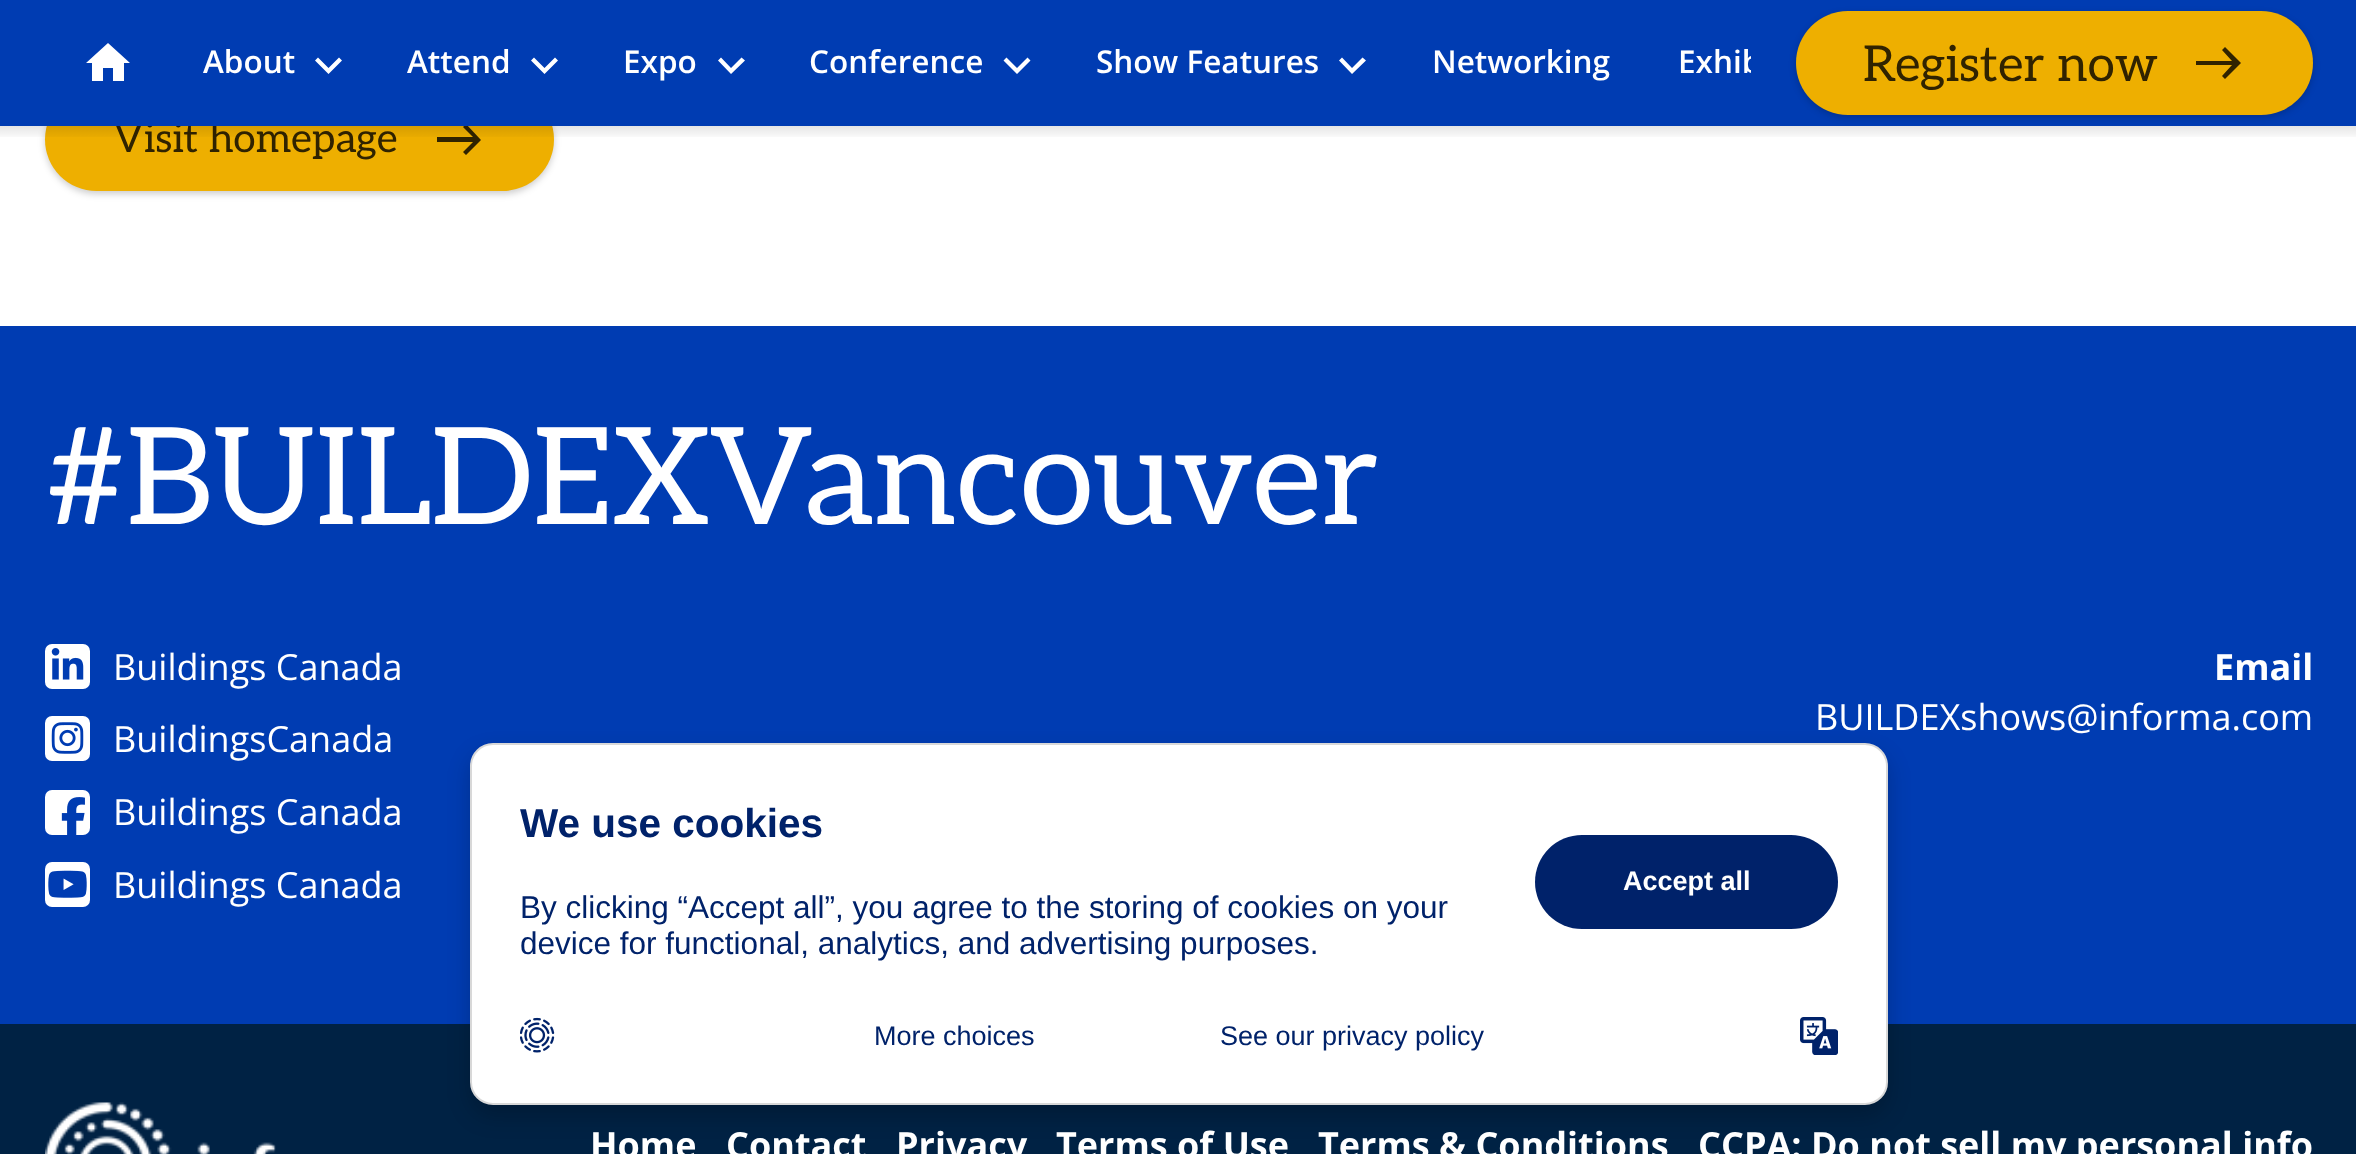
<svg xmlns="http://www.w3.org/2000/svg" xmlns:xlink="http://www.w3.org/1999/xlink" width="2356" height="1154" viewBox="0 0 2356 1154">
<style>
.cls-1{font:40.5px Aleo;fill:#302300}
.cls-2{font:49.5px Aleo;fill:#302300}
.cls-3{font:600 31.5px Open Sans;fill:#ffffff}
.cls-4{font:135px Aleo;fill:#ffffff}
.cls-5{font:36px Open Sans;fill:#ffffff}
.cls-6{font:bold 36px Open Sans;fill:#ffffff}
.cls-7{font:bold 40.5px Liberation Sans;fill:#00226a}
.cls-8{font:31.5px Liberation Sans;fill:#00226a}
.cls-9{font:bold 27px Liberation Sans;fill:#ffffff}
.cls-10{font:27px Liberation Sans;fill:#00226a}
</style>
<defs>
<linearGradient id="g1" gradientUnits="userSpaceOnUse" x1="1179" y1="126" x2="1179" y2="140"><stop offset="0" stop-color="#000000" stop-opacity="0.1"/><stop offset="1" stop-color="#000000" stop-opacity="0"/></linearGradient>
<clipPath id="clip1"><rect x="0" y="0" width="1751" height="126"/></clipPath>
</defs>
<rect width="100%" height="100%" fill="#ffffff"/>
<rect fill="#000000" fill-opacity="0.2" filter="blur(3.5px)" x="45" y="90" width="509" height="104" rx="52"/>
<rect fill="#eeaf00" x="45" y="88" width="509" height="103" rx="51.5"/>
<path fill="#302300" d="M466 124L463 127L473 137H437V142H473L463 152L466 155L481 140Z"/>
<rect fill="#003cb2" x="0" y="326" width="2356" height="698"/>
<rect fill="#ffffff" x="45" y="644" width="45" height="45" rx="7"/>
<image xlink:href="image0.png" x="51" y="648" width="33" height="32"/>
<rect fill="#ffffff" x="45" y="716" width="45" height="45" rx="7"/>
<image xlink:href="image1.png" x="51" y="722" width="33" height="32"/>
<rect fill="#ffffff" x="45" y="790" width="45" height="45" rx="7"/>
<image xlink:href="image2.png" x="61" y="797" width="24" height="38"/>
<rect fill="#ffffff" x="45" y="862" width="45" height="45" rx="7"/>
<image xlink:href="image3.png" x="48" y="870" width="39" height="28"/>
<rect fill="#002244" x="0" y="1024" width="2356" height="130"/>
<image xlink:href="image4.png" x="45" y="1102" width="231" height="52"/>
<rect fill="#000000" fill-opacity="0.2" filter="blur(11px)" x="470" y="754" width="1418" height="362" rx="23"/>
<rect fill="#ffffff" stroke="#d8d8d8" stroke-width="2" x="471" y="744" width="1416" height="360" rx="22"/>
<rect fill="#00226a" x="1535" y="835" width="303" height="94" rx="47"/>
<image xlink:href="image5.png" x="520" y="1017" width="35" height="36"/>
<image xlink:href="image6.png" x="1800" y="1017" width="38" height="38"/>
<text class="cls-1" x="113" y="152">Visit homepage</text>
<rect fill="#003cb2" x="0" y="0" width="2356" height="126"/>
<rect fill="#000000" fill-opacity="0.2" filter="blur(3.5px)" x="1796" y="14" width="517" height="103" rx="51.5"/>
<rect fill="url(#g1)" x="0" y="126" width="2356" height="11"/>
<rect fill="#eeaf00" x="1796" y="11" width="517" height="104" rx="52"/>
<path fill="#302300" d="M2225 47L2222 50L2232 61H2196V65H2232L2222 76L2225 79L2241 63Z"/>
<text class="cls-2" x="1863" y="81">Register now</text>
<g clip-path="url(#clip1)">
<text class="cls-3" x="1678" y="73">Exhib</text>
</g>
<text class="cls-3" x="1432" y="73">Networking</text>
<path fill="#ffffff" d="M1362.5 57.5L1366 60.5L1352 74L1339 60.5L1342 57.5L1352 68Z"/>
<text class="cls-3" x="1096" y="73">Show Features</text>
<path fill="#ffffff" d="M1027.5 57.5L1030.5 60.5L1017 74L1003.5 60.5L1006.5 57.5L1017 68Z"/>
<text class="cls-3" x="809" y="73">Conference</text>
<path fill="#ffffff" d="M741.5 57.5L745 60.5L731 74L718 60.5L721 57.5L731 68Z"/>
<text class="cls-3" x="623" y="73">Expo</text>
<path fill="#ffffff" d="M555 57.5L558 60.5L544.5 74L531 60.5L534 57.5L544.5 68Z"/>
<text class="cls-3" x="407" y="73">Attend</text>
<path fill="#ffffff" d="M339 57.5L342 60.5L328.5 74L315 60.5L318 57.5L328.5 68Z"/>
<text class="cls-3" x="203" y="73">About</text>
<path fill="#ffffff" d="M103 81H92V63H86L108 43L130 63H124V81H113V68H103Z"/>
<text class="cls-4" x="45" y="524">#BUILDEXVancouver</text>
<text class="cls-5" x="113" y="680">Buildings Canada</text>
<text class="cls-5" x="113" y="752">BuildingsCanada</text>
<text class="cls-5" x="113" y="825">Buildings Canada</text>
<text class="cls-5" x="113" y="898">Buildings Canada</text>
<text class="cls-6" x="2214" y="680">Email</text>
<text class="cls-5" x="1815" y="730">BUILDEXshows@informa.com</text>
<text class="cls-6" x="590" y="1158">Home</text>
<text class="cls-6" x="726" y="1158">Contact</text>
<text class="cls-6" x="896" y="1158">Privacy</text>
<text class="cls-6" x="1056" y="1158">Terms of Use</text>
<text class="cls-6" x="1318" y="1158">Terms &amp; Conditions</text>
<text class="cls-6" x="1698" y="1158">CCPA: Do not sell my personal info</text>
<text class="cls-7" x="520" y="837">We use cookies</text>
<text class="cls-8"><tspan x="520" y="918">By clicking “Accept all”, you agree to the storing of cookies on your</tspan><tspan x="520" y="954">device for functional, analytics, and advertising purposes.</tspan></text>
<text class="cls-9" x="1623" y="890">Accept all</text>
<text class="cls-10" x="874" y="1045">More choices</text>
<text class="cls-10" x="1220" y="1045">See our privacy policy</text>
</svg>
